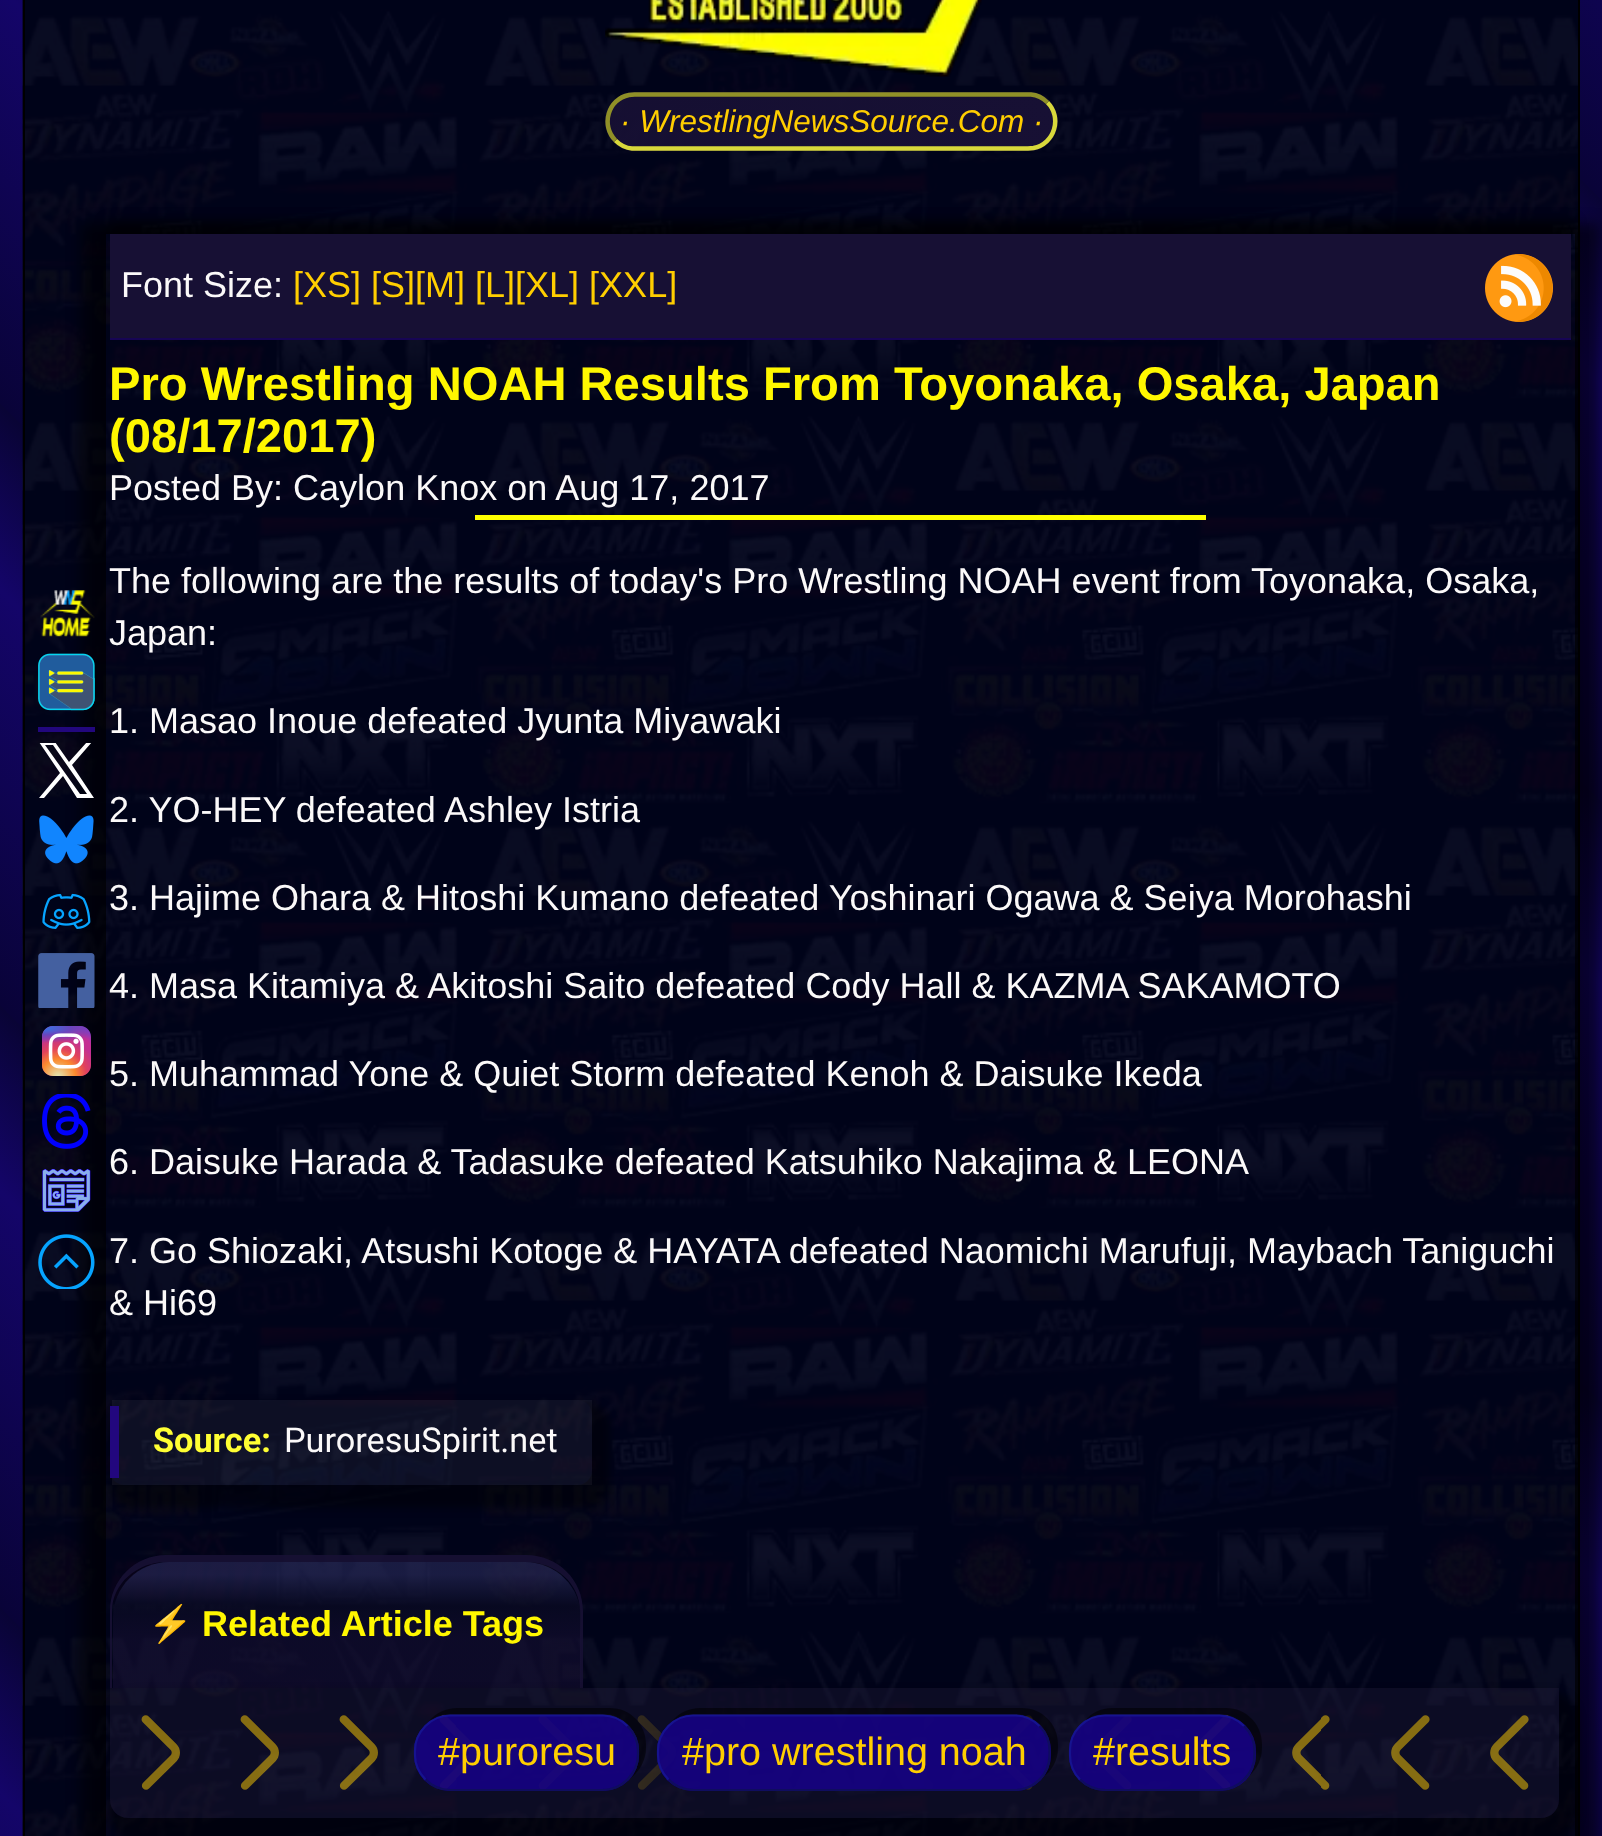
<svg xmlns="http://www.w3.org/2000/svg" xmlns:xlink="http://www.w3.org/1999/xlink" width="1602" height="1836" viewBox="0 0 1602 1836">
<style>
.cls-1{font:italic 31.5px Liberation Sans;fill:#ffce00}
.cls-2{font:36px Liberation Sans;fill:#fbf9f9}
.cls-3{font:36px Liberation Sans;fill:#ffce00}
.cls-4{font:bold 47.15px Liberation Sans;fill:#fff700}
.cls-5{font:bold 34.25px Roboto;fill:#ffff33}
.cls-6{font:34.25px Roboto;fill:#fbf9f9}
.cls-7{font:bold 36px Noto Color Emoji;fill:#fff700}
.cls-8{font:bold 36px Liberation Sans;fill:#fff700}
.cls-9{font:39.5px Liberation Sans;fill:#ffce00}
</style>
<defs>
<clipPath id="clip1"><rect x="605" y="92" width="453" height="59" rx="29.5"/></clipPath>
<linearGradient id="g1" gradientUnits="userSpaceOnUse" x1="708" y1="195" x2="955" y2="-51"><stop offset="0" stop-color="#171034" stop-opacity="0.91"/><stop offset="1" stop-color="#171034"/></linearGradient>
<linearGradient id="g2" gradientUnits="userSpaceOnUse" x1="265" y1="245" x2="511" y2="-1.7"><stop offset="0" stop-color="#171034" stop-opacity="0.91"/><stop offset="1" stop-color="#171034"/></linearGradient>
<linearGradient id="g3" gradientUnits="userSpaceOnUse" x1="708" y1="245" x2="955" y2="-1.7"><stop offset="0" stop-color="#171034" stop-opacity="0.91"/><stop offset="1" stop-color="#171034"/></linearGradient>
<linearGradient id="g4" gradientUnits="userSpaceOnUse" x1="1151" y1="245" x2="1398" y2="-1.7"><stop offset="0" stop-color="#171034" stop-opacity="0.91"/><stop offset="1" stop-color="#171034"/></linearGradient>
<linearGradient id="g5" gradientUnits="userSpaceOnUse" x1="708" y1="294" x2="955" y2="48"><stop offset="0" stop-color="#171034" stop-opacity="0.91"/><stop offset="1" stop-color="#171034"/></linearGradient>
<clipPath id="clip2"><path d="M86 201H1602V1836H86ZM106 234H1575V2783H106Z" clip-rule="evenodd"/></clipPath>
<clipPath id="clip3"><path d="M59 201H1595V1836H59ZM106 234H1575V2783H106Z" clip-rule="evenodd"/></clipPath>
<clipPath id="clip4"><rect x="38" y="743" width="57" height="56"/></clipPath>
<clipPath id="clip5"><path d="M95 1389H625V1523H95ZM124 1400H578C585.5 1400 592 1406.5 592 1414V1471C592 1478.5 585.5 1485 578 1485H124C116.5 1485 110 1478.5 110 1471V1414C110 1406.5 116.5 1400 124 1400Z" clip-rule="evenodd"/></clipPath>
<linearGradient id="g6" gradientUnits="userSpaceOnUse" x1="347" y1="1562" x2="347" y2="1688"><stop offset="0.1" stop-color="#2a2c5d" stop-opacity="0.6"/><stop offset="0.35" stop-color="#0c0c25" stop-opacity="0.6"/><stop offset="0.6" stop-color="#171034" stop-opacity="0.55"/></linearGradient>
<clipPath id="clip6"><path d="M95 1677H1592V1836H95ZM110 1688H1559V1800C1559 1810 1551 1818 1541 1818H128C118 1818 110 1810 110 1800Z" clip-rule="evenodd"/></clipPath>
</defs>
<rect width="100%" height="100%" fill="#ffffff"/>
<image xlink:href="image0.png" x="22" y="0" width="1556" height="1836"/>
<image xlink:href="image1.png" x="0" y="0" width="1602" height="1836"/>
<image xlink:href="image2.png" x="605" y="0" width="377" height="77"/>
<g clip-path="url(#clip1)">
<rect fill="url(#g1)" x="610" y="92" width="443" height="5"/>
<rect fill="url(#g2)" x="605" y="97" width="5" height="49"/>
<rect fill="url(#g3)" x="610" y="97" width="443" height="49"/>
<rect fill="url(#g4)" x="1053" y="97" width="5" height="49"/>
<rect fill="url(#g5)" x="610" y="146" width="443" height="5"/>
</g>
<path fill="none" stroke="#d8d83b" stroke-width="4.5" d="M1047.5 102.5C1062.5 117.5 1054.5 144 1033.5 148L1028 148.5H632C625.5 148 620 145 615.5 140.5"/>
<path fill="none" stroke="#909027" stroke-width="4.5" d="M615.5 140.5C600.5 125.5 608 99 629 95L634.5 94.5H1031C1037 95 1043 98 1047.5 102.5"/>
<g clip-path="url(#clip2)">
<rect fill="#000000" fill-opacity="0.55" filter="blur(7px)" x="108" y="223" width="1492" height="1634"/>
</g>
<g clip-path="url(#clip3)">
<rect fill="#000000" fill-opacity="0.55" filter="blur(7px)" x="81" y="223" width="1492" height="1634"/>
</g>
<rect fill="#171034" x="110" y="234" width="1461" height="104"/>
<rect fill="#170554" x="110" y="338" width="1461" height="2"/>
<rect fill="none" stroke="#000000" stroke-width="2" x="24" y="-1" width="1555" height="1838"/>
<image xlink:href="image3.png" x="40" y="590" width="55" height="47"/>
<image xlink:href="image4.png" x="38" y="653" width="57" height="58"/>
<rect fill="#22077e" x="38" y="727" width="57" height="5"/>
<g clip-path="url(#clip4)">
<path fill="#ffffff" d="M72 765L92 742H87L69 762L55 742H39L60 773L39 798H44L63 776L77 798H94ZM65 773L45 745H53L87 794H80Z"/>
</g>
<image xlink:href="image5.png" x="39" y="815" width="55" height="49"/>
<image xlink:href="image6.png" x="42" y="893" width="49" height="36"/>
<image xlink:href="image7.png" x="38" y="953" width="57" height="55"/>
<image xlink:href="image8.png" x="42" y="1026" width="49" height="50"/>
<image xlink:href="image9.png" x="42" y="1094" width="49" height="55"/>
<image xlink:href="image10.png" x="42" y="1169" width="49" height="43"/>
<image xlink:href="image11.png" x="38" y="1234" width="57" height="55"/>
<image xlink:href="image12.png" x="1485" y="254" width="68" height="68"/>
<rect fill="#ffff00" x="475" y="515" width="731" height="5"/>
<g clip-path="url(#clip5)">
<rect fill="#000000" fill-opacity="0.42" filter="blur(4.5px)" x="110" y="1404" width="500" height="104" rx="23"/>
</g>
<rect fill="#ffffff" fill-opacity="0.05" x="112" y="1400" width="480" height="85"/>
<rect fill="#22077e" x="110" y="1406" width="9" height="72"/>
<path fill="#171034" fill-opacity="0.91" fill-rule="evenodd" d="M166 1555H526C558 1555 583 1580 583 1611V1688H110V1611C110 1580 135 1555 166 1555ZM166 1562H526C556 1562 580 1584 580 1611V1688H112V1611C112 1584 137 1562 166 1562Z"/>
<path fill="url(#g6)" d="M169 1562H525C556 1562 581 1587 581 1618V1688H113V1618C113 1587 138 1562 169 1562Z"/>
<g clip-path="url(#clip6)">
<rect fill="#000000" fill-opacity="0.42" filter="blur(4.5px)" x="110" y="1692" width="1467" height="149" rx="27"/>
</g>
<path fill="#292243" fill-opacity="0.29" d="M110 1688H1559V1800C1559 1810 1551 1818 1541 1818H128C118 1818 110 1810 110 1800Z"/>
<image xlink:href="image13.png" x="141" y="1715" width="604" height="75"/>
<image xlink:href="image14.png" x="924" y="1715" width="605" height="75"/>
<path fill="#000000" fill-opacity="0.51" d="M700 1708H1022C1042 1708 1058 1724 1058 1744V1748C1058 1760 1052 1771 1043 1777C1048 1771 1051 1763 1051 1755V1750C1051 1731 1035 1714 1015 1714H693C685 1714 678 1717 672 1721C679 1713 689 1708 700 1708Z"/>
<rect fill="#150280" fill-opacity="0.93" x="657" y="1715" width="394" height="76" rx="36"/>
<path fill="none" stroke="#0f0d5f" stroke-width="2.2" d="M1039.5 1726C1046 1732.5 1049.5 1741.5 1049.5 1750.5V1755C1049.5 1764 1046 1773 1039.5 1779.5C1033 1786 1024 1790 1015 1790H693C684 1790 675 1786 668.5 1779.5"/>
<path fill="none" stroke="#16138f" stroke-width="2.2" d="M668.5 1779.5C662 1773 658 1764 658 1755V1750.5C658 1741.5 662 1732.5 668.5 1726C675 1719.5 684 1715.5 693 1715.5H1015C1024 1715.5 1033 1719.5 1039.5 1726"/>
<path fill="#000000" fill-opacity="0.51" d="M457 1708H610C630 1708 646 1724 646 1744V1748C646 1760 640 1770 632 1777C636 1771 639 1763 639 1755V1750C639 1731 623 1714 603 1714H450C442 1714 435 1717 429 1721C436 1713 446 1708 457 1708Z"/>
<rect fill="#150280" fill-opacity="0.93" x="414" y="1715" width="225" height="76" rx="36"/>
<path fill="none" stroke="#0f0d5f" stroke-width="2.2" d="M627.5 1726C634 1732.5 638 1741.5 638 1750.5V1755C638 1764 634 1773 627.5 1779.5C621 1786 612 1790 603 1790H450C441 1790 432 1786 425.5 1779.5"/>
<path fill="none" stroke="#16138f" stroke-width="2.2" d="M425.5 1779.5C419 1773 415 1764 415 1755V1750.5C415 1741.5 419 1732.5 425.5 1726C432 1719.5 441 1715.5 450 1715.5H603C612 1715.5 621 1719.5 627.5 1726"/>
<path fill="#000000" fill-opacity="0.51" d="M1112 1708H1226C1246 1708 1262 1724 1262 1744V1748C1262 1759 1257 1769 1249 1776C1253 1770 1256 1763 1256 1755V1750C1256 1731 1239 1714 1220 1714H1105C1097 1714 1090 1717 1085 1721C1091 1713 1101 1708 1112 1708Z"/>
<rect fill="#150280" fill-opacity="0.93" x="1069" y="1715" width="187" height="76" rx="36"/>
<path fill="none" stroke="#0f0d5f" stroke-width="2.2" d="M1244 1726C1250.5 1732.5 1254.5 1741.5 1254.5 1750.5V1755C1254.5 1764 1250.5 1773 1244 1779.5C1237.5 1786 1228.5 1790 1219.5 1790H1105C1095.5 1790 1086.5 1786 1080 1779.5"/>
<path fill="none" stroke="#16138f" stroke-width="2.2" d="M1080 1779.5C1073.5 1773 1070 1764 1070 1755V1750.5C1070 1741.5 1073.5 1732.5 1080 1726C1086.5 1719.5 1095.5 1715.5 1105 1715.5H1219.5C1228.5 1715.5 1237.5 1719.5 1244 1726"/>
<text class="cls-1" x="620" y="132">· WrestlingNewsSource.Com ·</text>
<text class="cls-2" x="121" y="297">Font Size:</text>
<text class="cls-3" x="293" y="297">[XS] [S][M] [L][XL] [XXL]</text>
<text class="cls-4"><tspan x="109" y="400">Pro Wrestling NOAH Results From Toyonaka, Osaka, Japan</tspan><tspan x="109" y="452">(08/17/2017)</tspan></text>
<text class="cls-2" x="109" y="500">Posted By: Caylon Knox on Aug 17, 2017</text>
<text class="cls-2"><tspan x="109" y="593">The following are the results of today's Pro Wrestling NOAH event from Toyonaka, Osaka,</tspan><tspan x="109" y="645">Japan:</tspan></text>
<text class="cls-2" x="109" y="733">1. Masao Inoue defeated Jyunta Miyawaki</text>
<text class="cls-2" x="109" y="822">2. YO-HEY defeated Ashley Istria</text>
<text class="cls-2" x="109" y="910">3. Hajime Ohara &amp; Hitoshi Kumano defeated Yoshinari Ogawa &amp; Seiya Morohashi</text>
<text class="cls-2" x="109" y="998">4. Masa Kitamiya &amp; Akitoshi Saito defeated Cody Hall &amp; KAZMA SAKAMOTO</text>
<text class="cls-2" x="109" y="1086">5. Muhammad Yone &amp; Quiet Storm defeated Kenoh &amp; Daisuke Ikeda</text>
<text class="cls-2" x="109" y="1174">6. Daisuke Harada &amp; Tadasuke defeated Katsuhiko Nakajima &amp; LEONA</text>
<text class="cls-2"><tspan x="109" y="1263">7. Go Shiozaki, Atsushi Kotoge &amp; HAYATA defeated Naomichi Marufuji, Maybach Taniguchi</tspan><tspan x="109" y="1315">&amp; Hi69</tspan></text>
<text class="cls-5" x="153" y="1452">Source:</text>
<text class="cls-6" x="284" y="1452">PuroresuSpirit.net</text>
<text class="cls-7" x="148" y="1636">⚡</text>
<text class="cls-8" x="202" y="1636">Related Article Tags</text>
<text class="cls-9" x="682" y="1765">#pro wrestling noah</text>
<text class="cls-9" x="438" y="1765">#puroresu</text>
<text class="cls-9" x="1093" y="1765">#results</text>
</svg>
